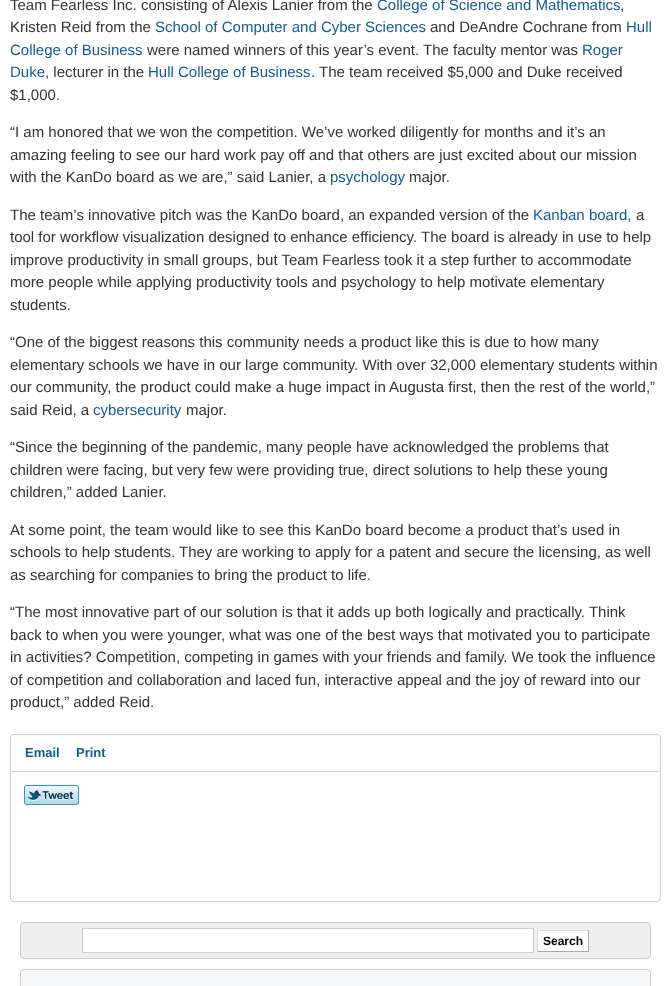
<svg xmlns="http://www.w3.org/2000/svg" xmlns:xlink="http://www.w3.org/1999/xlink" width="671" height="986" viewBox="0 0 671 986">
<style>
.cls-1{font:15px Liberation Sans;fill:#333333}
.cls-2{font:15px Liberation Sans;fill:#125a95}
.cls-3{font:bold 13px Liberation Sans;fill:#125a95}
.cls-4{font:bold 12px Liberation Sans;fill:#000000}
</style>
<rect width="100%" height="100%" fill="#ffffff"/>
<rect fill="none" stroke="#cccccc" x="10.5" y="734.5" width="650" height="167" rx="3.5"/>
<rect fill="#cccccc" x="12" y="771" width="647" height="1"/>
<image xlink:href="image0.png" x="24" y="784" width="55" height="22"/>
<rect fill="#eeeeee" stroke="#cccccc" x="20.5" y="922.5" width="630" height="36" rx="3.5"/>
<rect fill="#ffffff" stroke="#cccccc" x="82.5" y="928.5" width="451" height="24"/>
<rect fill="#ffffff" x="538" y="931" width="50" height="20"/>
<rect fill="#dddddd" x="537" y="930" width="52" height="1"/>
<rect fill="#aaaaaa" x="588" y="930" width="1" height="22"/>
<rect fill="#aaaaaa" x="537" y="951" width="52" height="1"/>
<rect fill="#dddddd" x="537" y="930" width="1" height="22"/>
<rect fill="#f5f7f9" stroke="#cccccc" x="20.5" y="969.5" width="630" height="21" rx="3.5"/>
<text class="cls-1" x="10" y="10">Team Fearless Inc. consisting of Alexis Lanier from the</text>
<text class="cls-2" x="377" y="10">College of Science and Mathematics</text>
<text class="cls-1" x="620" y="10">,</text>
<text class="cls-1" x="10" y="32">Kristen Reid from the</text>
<text class="cls-2" x="155" y="32">School of Computer and Cyber Sciences</text>
<text class="cls-1" x="430" y="32">and DeAndre Cochrane from</text>
<text class="cls-2" x="626" y="32">Hull</text>
<text class="cls-2" x="10" y="55">College of Business</text>
<text class="cls-1" x="147" y="55">were named winners of this year’s event. The faculty mentor was</text>
<text class="cls-2" x="582" y="55">Roger</text>
<text class="cls-2" x="10" y="77">Duke</text>
<text class="cls-1" x="45" y="77">, lecturer in the</text>
<text class="cls-2" x="148" y="77">Hull College of Business</text>
<text class="cls-1" x="311" y="77">. The team received $5,000 and Duke received</text>
<text class="cls-1" x="10" y="100">$1,000.</text>
<text class="cls-1"><tspan x="10" y="137">“I am honored that we won the competition. We’ve worked diligently for months and it’s an</tspan><tspan x="10" y="160">amazing feeling to see our hard work pay off and that others are just excited about our mission</tspan><tspan x="10" y="182">with the KanDo board as we are,” said Lanier, a</tspan></text>
<text class="cls-2" x="330" y="182">psychology</text>
<text class="cls-1" x="409" y="182">major.</text>
<text class="cls-1" x="10" y="220">The team’s innovative pitch was the KanDo board, an expanded version of the</text>
<text class="cls-2" x="533" y="220">Kanban board,</text>
<text class="cls-1" x="636" y="220">a</text>
<text class="cls-1"><tspan x="10" y="242">tool for workflow visualization designed to enhance efficiency. The board is already in use to help</tspan><tspan x="10" y="265">improve productivity in small groups, but Team Fearless took it a step further to accommodate</tspan><tspan x="10" y="287">more people while applying productivity tools and psychology to help motivate elementary</tspan><tspan x="10" y="310">students.</tspan></text>
<text class="cls-1"><tspan x="10" y="347">“One of the biggest reasons this community needs a product like this is due to how many</tspan><tspan x="10" y="370">elementary schools we have in our large community. With over 32,000 elementary students within</tspan><tspan x="10" y="392">our community, the product could make a huge impact in Augusta first, then the rest of the world,”</tspan><tspan x="10" y="415">said Reid, a</tspan></text>
<text class="cls-2" x="93" y="415">cybersecurity</text>
<text class="cls-1" x="186" y="415">major.</text>
<text class="cls-1"><tspan x="10" y="452">“Since the beginning of the pandemic, many people have acknowledged the problems that</tspan><tspan x="10" y="475">children were facing, but very few were providing true, direct solutions to help these young</tspan><tspan x="10" y="497">children,” added Lanier.</tspan></text>
<text class="cls-1"><tspan x="10" y="535">At some point, the team would like to see this KanDo board become a product that’s used in</tspan><tspan x="10" y="557">schools to help students. They are working to apply for a patent and secure the licensing, as well</tspan><tspan x="10" y="580">as searching for companies to bring the product to life.</tspan></text>
<text class="cls-1"><tspan x="10" y="617">“The most innovative part of our solution is that it adds up both logically and practically. Think</tspan><tspan x="10" y="640">back to when you were younger, what was one of the best ways that motivated you to participate</tspan><tspan x="10" y="662">in activities? Competition, competing in games with your friends and family. We took the influence</tspan><tspan x="10" y="685">of competition and collaboration and laced fun, interactive appeal and the joy of reward into our</tspan><tspan x="10" y="707">product,” added Reid.</tspan></text>
<text class="cls-3" x="25" y="757">Email</text>
<text class="cls-3" x="76" y="757">Print</text>
<text class="cls-4" x="543" y="945">Search</text>
</svg>
